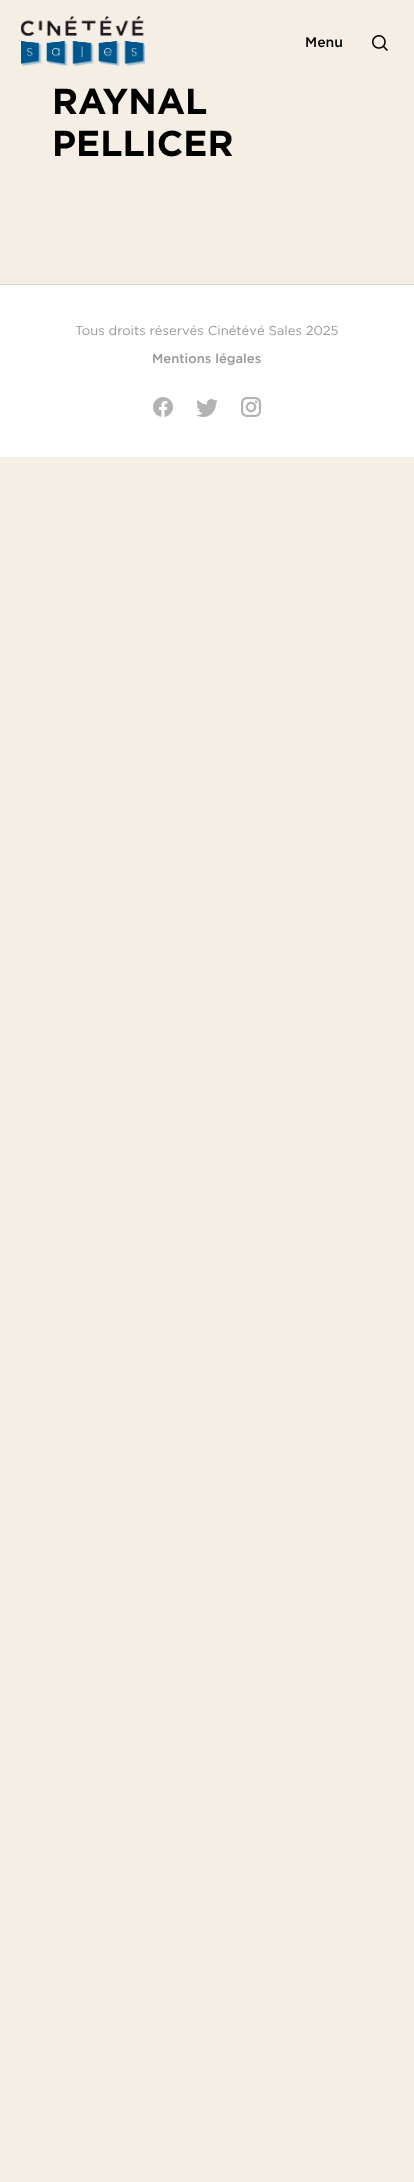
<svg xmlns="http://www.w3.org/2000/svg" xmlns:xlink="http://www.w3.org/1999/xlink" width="414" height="2182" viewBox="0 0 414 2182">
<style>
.cls-1{font:500 14px Gotham;fill:#000000}
.cls-2{font:bold 36px Gotham;fill:#000000}
.cls-3{font:13px Gotham;fill:#999999}
.cls-4{font:500 13px Gotham;fill:#999999}
</style>
<rect width="100%" height="100%" fill="#f5eee4"/>
<image xlink:href="image0.png" x="21" y="16" width="124" height="50"/>
<image xlink:href="image1.png" x="372" y="35" width="16" height="16"/>
<rect fill="#ffffff" x="0" y="285" width="414" height="172"/>
<rect fill="#d9d9d9" x="0" y="284" width="414" height="1"/>
<image xlink:href="image2.png" x="153" y="397" width="20" height="20"/>
<image xlink:href="image3.png" x="197" y="399" width="20" height="18"/>
<image xlink:href="image4.png" x="241" y="397" width="20" height="20"/>
<text class="cls-1" x="305" y="47">Menu</text>
<text class="cls-2"><tspan x="52" y="114">RAYNAL</tspan><tspan x="52" y="156">PELLICER</tspan></text>
<text class="cls-3" x="75" y="335">Tous droits réservés Cinétévé Sales 2025</text>
<text class="cls-4" x="152" y="363">Mentions légales</text>
</svg>
